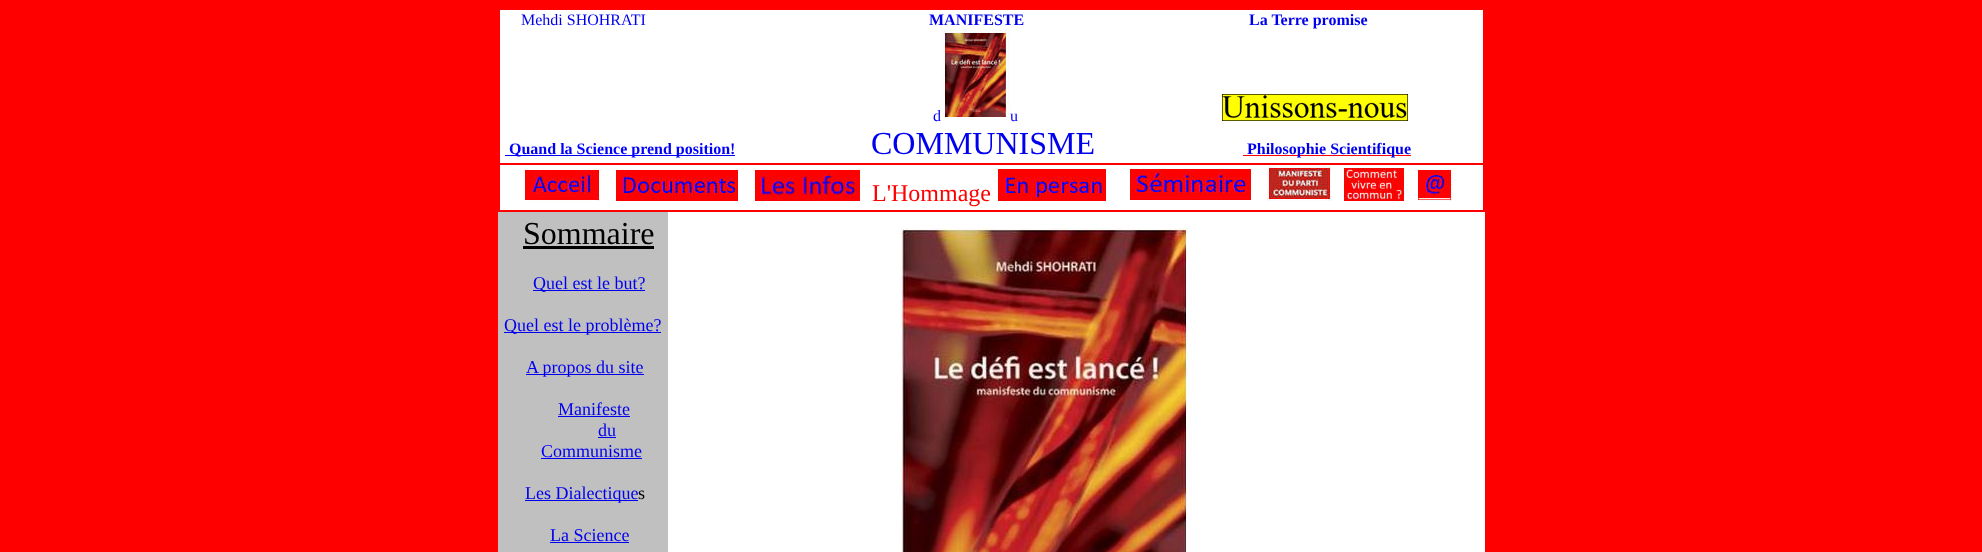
<svg xmlns="http://www.w3.org/2000/svg" xmlns:xlink="http://www.w3.org/1999/xlink" width="1982" height="552" viewBox="0 0 1982 552">
<style>
.cls-1{font:16px Liberation Serif;fill:#0000ee}
.cls-2{font:bold 16px Liberation Serif;fill:#0000ee}
.cls-3{font:16px Liberation Serif;fill:#0000ff}
.cls-4{font:bold 16px Liberation Serif;fill:#0000ff}
.cls-5{font:32px Liberation Serif;fill:#0000ee}
.cls-6{font:24px Liberation Serif;fill:#ff0000}
.cls-7{font:32px Liberation Serif;fill:#000000}
.cls-8{font:18px Liberation Serif;fill:#0000ee}
.cls-9{font:18px Liberation Serif;fill:#0000ff}
.cls-10{font:18px Liberation Serif;fill:#000000}
</style>
<rect width="100%" height="100%" fill="#ff0000"/>
<rect fill="#ffffff" x="500" y="10" width="983" height="153"/>
<image xlink:href="image0.png" x="941" y="29" width="69" height="88"/>
<image xlink:href="image1.png" x="1222" y="94" width="186" height="27"/>
<rect fill="#0000ee" x="505" y="155" width="230" height="1"/>
<rect fill="#ff0000" x="1243" y="155" width="168" height="1"/>
<rect fill="#ffffff" x="500" y="165" width="983" height="45"/>
<image xlink:href="image2.png" x="525" y="170" width="75" height="31"/>
<image xlink:href="image3.png" x="616" y="170" width="123" height="31"/>
<image xlink:href="image4.png" x="755" y="170" width="105" height="31"/>
<image xlink:href="image5.png" x="998" y="169" width="108" height="32"/>
<image xlink:href="image6.png" x="1130" y="169" width="121" height="31"/>
<image xlink:href="image7.png" x="1267" y="166" width="64" height="35"/>
<image xlink:href="image8.png" x="1344" y="168" width="60" height="33"/>
<image xlink:href="image9.png" x="1418" y="170" width="34" height="31"/>
<rect fill="#c0c0c0" x="498" y="212" width="170" height="340"/>
<rect fill="#000000" x="523" y="246" width="131" height="3"/>
<rect fill="#0000ee" x="533" y="290" width="112" height="1"/>
<rect fill="#0000ee" x="504" y="332" width="157" height="1"/>
<rect fill="#0000ee" x="526" y="374" width="118" height="1"/>
<rect fill="#0000ee" x="558" y="416" width="72" height="1"/>
<rect fill="#0000ee" x="598" y="437" width="18" height="1"/>
<rect fill="#0000ee" x="541" y="458" width="101" height="1"/>
<rect fill="#0000ee" x="525" y="500" width="113" height="1"/>
<rect fill="#0000ee" x="550" y="542" width="79" height="1"/>
<rect fill="#ffffff" x="668" y="212" width="817" height="340"/>
<image xlink:href="image10.png" x="900" y="228" width="288" height="324"/>
<text class="cls-1" x="521" y="25">Mehdi SHOHRATI</text>
<text class="cls-2" x="929" y="25">MANIFESTE</text>
<text class="cls-2" x="1249" y="25">La Terre promise</text>
<text class="cls-3" x="933" y="121">d</text>
<text class="cls-3" x="1010" y="121">u</text>
<text class="cls-4" x="509" y="154">Quand la Science prend position!</text>
<text class="cls-5" x="871" y="154">COMMUNISME</text>
<text class="cls-2" x="1247" y="154">Philosophie Scientifique</text>
<text class="cls-6" x="872" y="201">L'Hommage</text>
<text class="cls-7" x="523" y="244">Sommaire</text>
<text class="cls-8" x="533" y="289">Quel est le but?</text>
<text class="cls-8" x="504" y="331">Quel est le problème?</text>
<text class="cls-8" x="526" y="373">A propos du site</text>
<text class="cls-8" x="558" y="415">Manifeste</text>
<text class="cls-8" x="598" y="436">du</text>
<text class="cls-9" x="541" y="457">C</text>
<text class="cls-8" x="553" y="457">ommunisme</text>
<text class="cls-8" x="525" y="499">Les Dialectique</text>
<text class="cls-10" x="638" y="499">s</text>
<text class="cls-8" x="550" y="541">La Science</text>
</svg>
